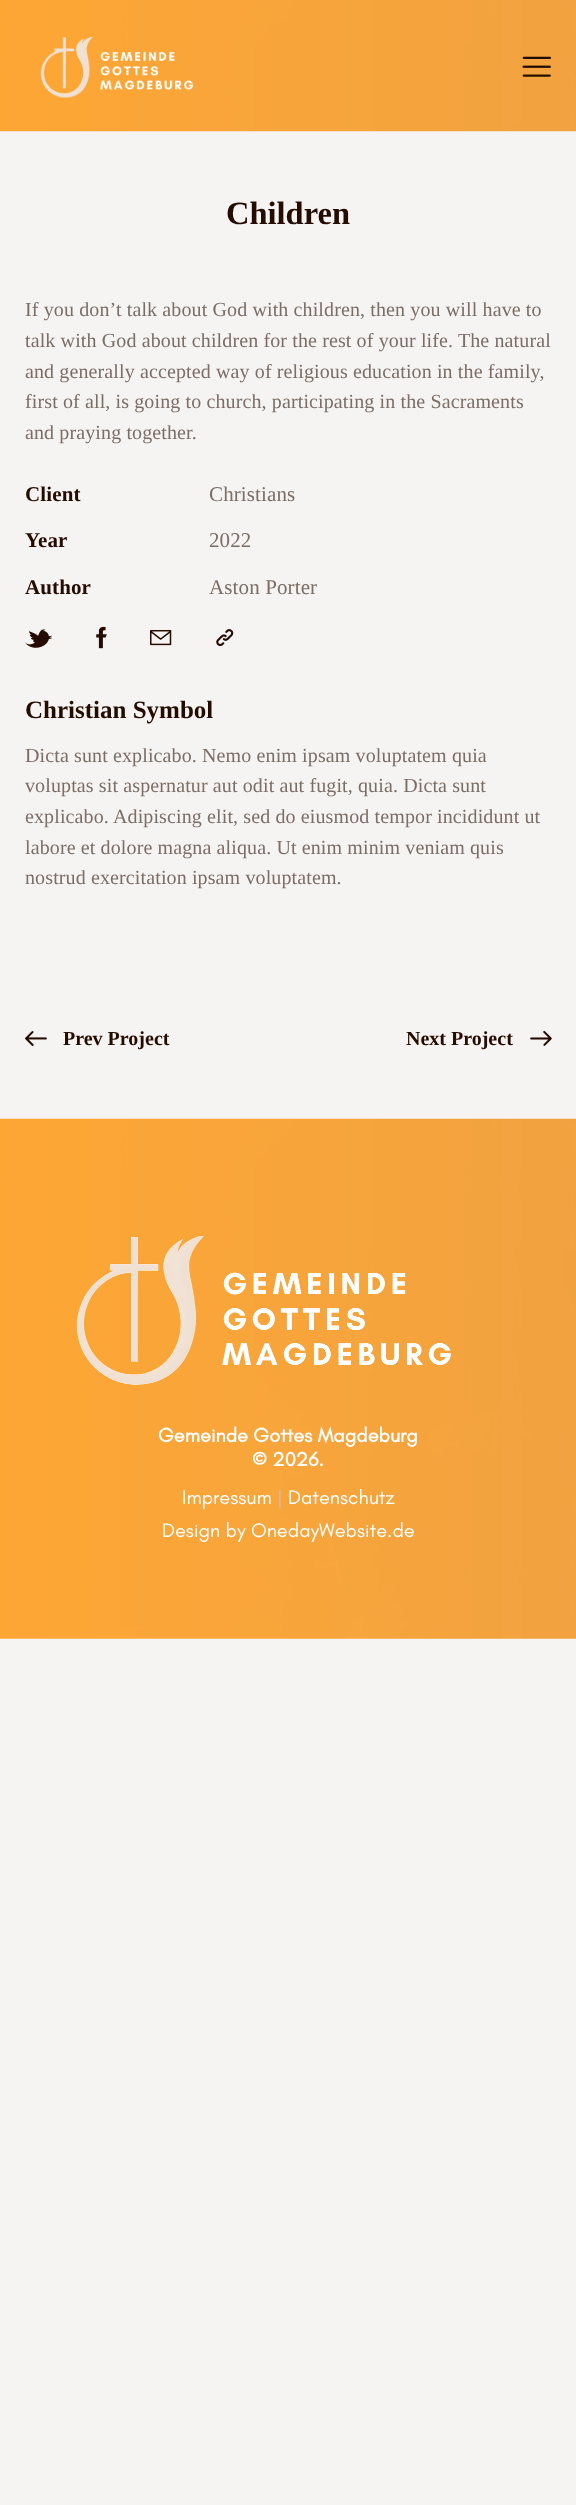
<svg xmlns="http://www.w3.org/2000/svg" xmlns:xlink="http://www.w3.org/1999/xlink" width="576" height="2505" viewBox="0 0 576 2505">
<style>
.cls-1{font:bold 32.5px Liberation Serif;fill:#240c00}
.cls-2{font:20px Liberation Serif;letter-spacing:0.12px;fill:#7c6d66}
.cls-3{font:bold 21px Liberation Serif;letter-spacing:0.12px;fill:#240c00}
.cls-4{font:21px Liberation Serif;letter-spacing:0.12px;fill:#7c6d66}
.cls-5{font:bold 25px Liberation Serif;fill:#240c00}
.cls-6{font:bold 20px Liberation Serif;fill:#240c00}
.cls-7{font:bold 20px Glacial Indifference;fill:#ffffff}
.cls-8{font:20px Glacial Indifference;fill:#ffffff}
.cls-9{font:20px Glacial Indifference;fill:#cac2c0}
</style>
<rect width="100%" height="100%" fill="#f6f4f2"/>
<image xlink:href="image0.png" x="0" y="0" width="576" height="132"/>
<image xlink:href="image1.png" x="40" y="36" width="154" height="62"/>
<image xlink:href="image2.png" x="522" y="56" width="30" height="21"/>
<image xlink:href="image3.png" x="25" y="629" width="27" height="19"/>
<image xlink:href="image4.png" x="96" y="626" width="11" height="23"/>
<image xlink:href="image5.png" x="150" y="630" width="22" height="16"/>
<image xlink:href="image6.png" x="216" y="629" width="18" height="18"/>
<image xlink:href="image7.png" x="25" y="1031" width="22" height="15"/>
<image xlink:href="image8.png" x="530" y="1030" width="22" height="16"/>
<image xlink:href="image9.png" x="0" y="1118" width="576" height="521"/>
<image xlink:href="image10.png" x="76" y="1236" width="375" height="149"/>
<text class="cls-1" x="226" y="224">Children</text>
<text class="cls-2"><tspan x="25" y="316">If you don’t talk about God with children, then you will have to</tspan><tspan x="25" y="347">talk with God about children for the rest of your life. The natural</tspan><tspan x="25" y="378">and generally accepted way of religious education in the family,</tspan><tspan x="25" y="408">first of all, is going to church, participating in the Sacraments</tspan><tspan x="25" y="439">and praying together.</tspan></text>
<text class="cls-3" x="25" y="501">Client</text>
<text class="cls-4" x="209" y="501">Christians</text>
<text class="cls-3" x="25" y="547">Year</text>
<text class="cls-4" x="209" y="547">2022</text>
<text class="cls-3" x="25" y="594">Author</text>
<text class="cls-4" x="209" y="594">Aston Porter</text>
<text class="cls-5" x="25" y="718">Christian Symbol</text>
<text class="cls-2"><tspan x="25" y="762">Dicta sunt explicabo. Nemo enim ipsam voluptatem quia</tspan><tspan x="25" y="792">voluptas sit aspernatur aut odit aut fugit, quia. Dicta sunt</tspan><tspan x="25" y="823">explicabo. Adipiscing elit, sed do eiusmod tempor incididunt ut</tspan><tspan x="25" y="854">labore et dolore magna aliqua. Ut enim minim veniam quis</tspan><tspan x="25" y="884">nostrud exercitation ipsam voluptatem.</tspan></text>
<text class="cls-6" x="63" y="1045">Prev Project</text>
<text class="cls-6" x="406" y="1045">Next Project</text>
<text class="cls-7" x="158" y="1442">Gemeinde Gottes Magdeburg</text>
<text class="cls-7" x="252" y="1466">© 2026.</text>
<text class="cls-8" x="182" y="1504">Impressum</text>
<text class="cls-9" x="277" y="1504">|</text>
<text class="cls-8" x="288" y="1504">Datenschutz</text>
<text class="cls-8" x="162" y="1537">Design by OnedayWebsite.de</text>
</svg>
